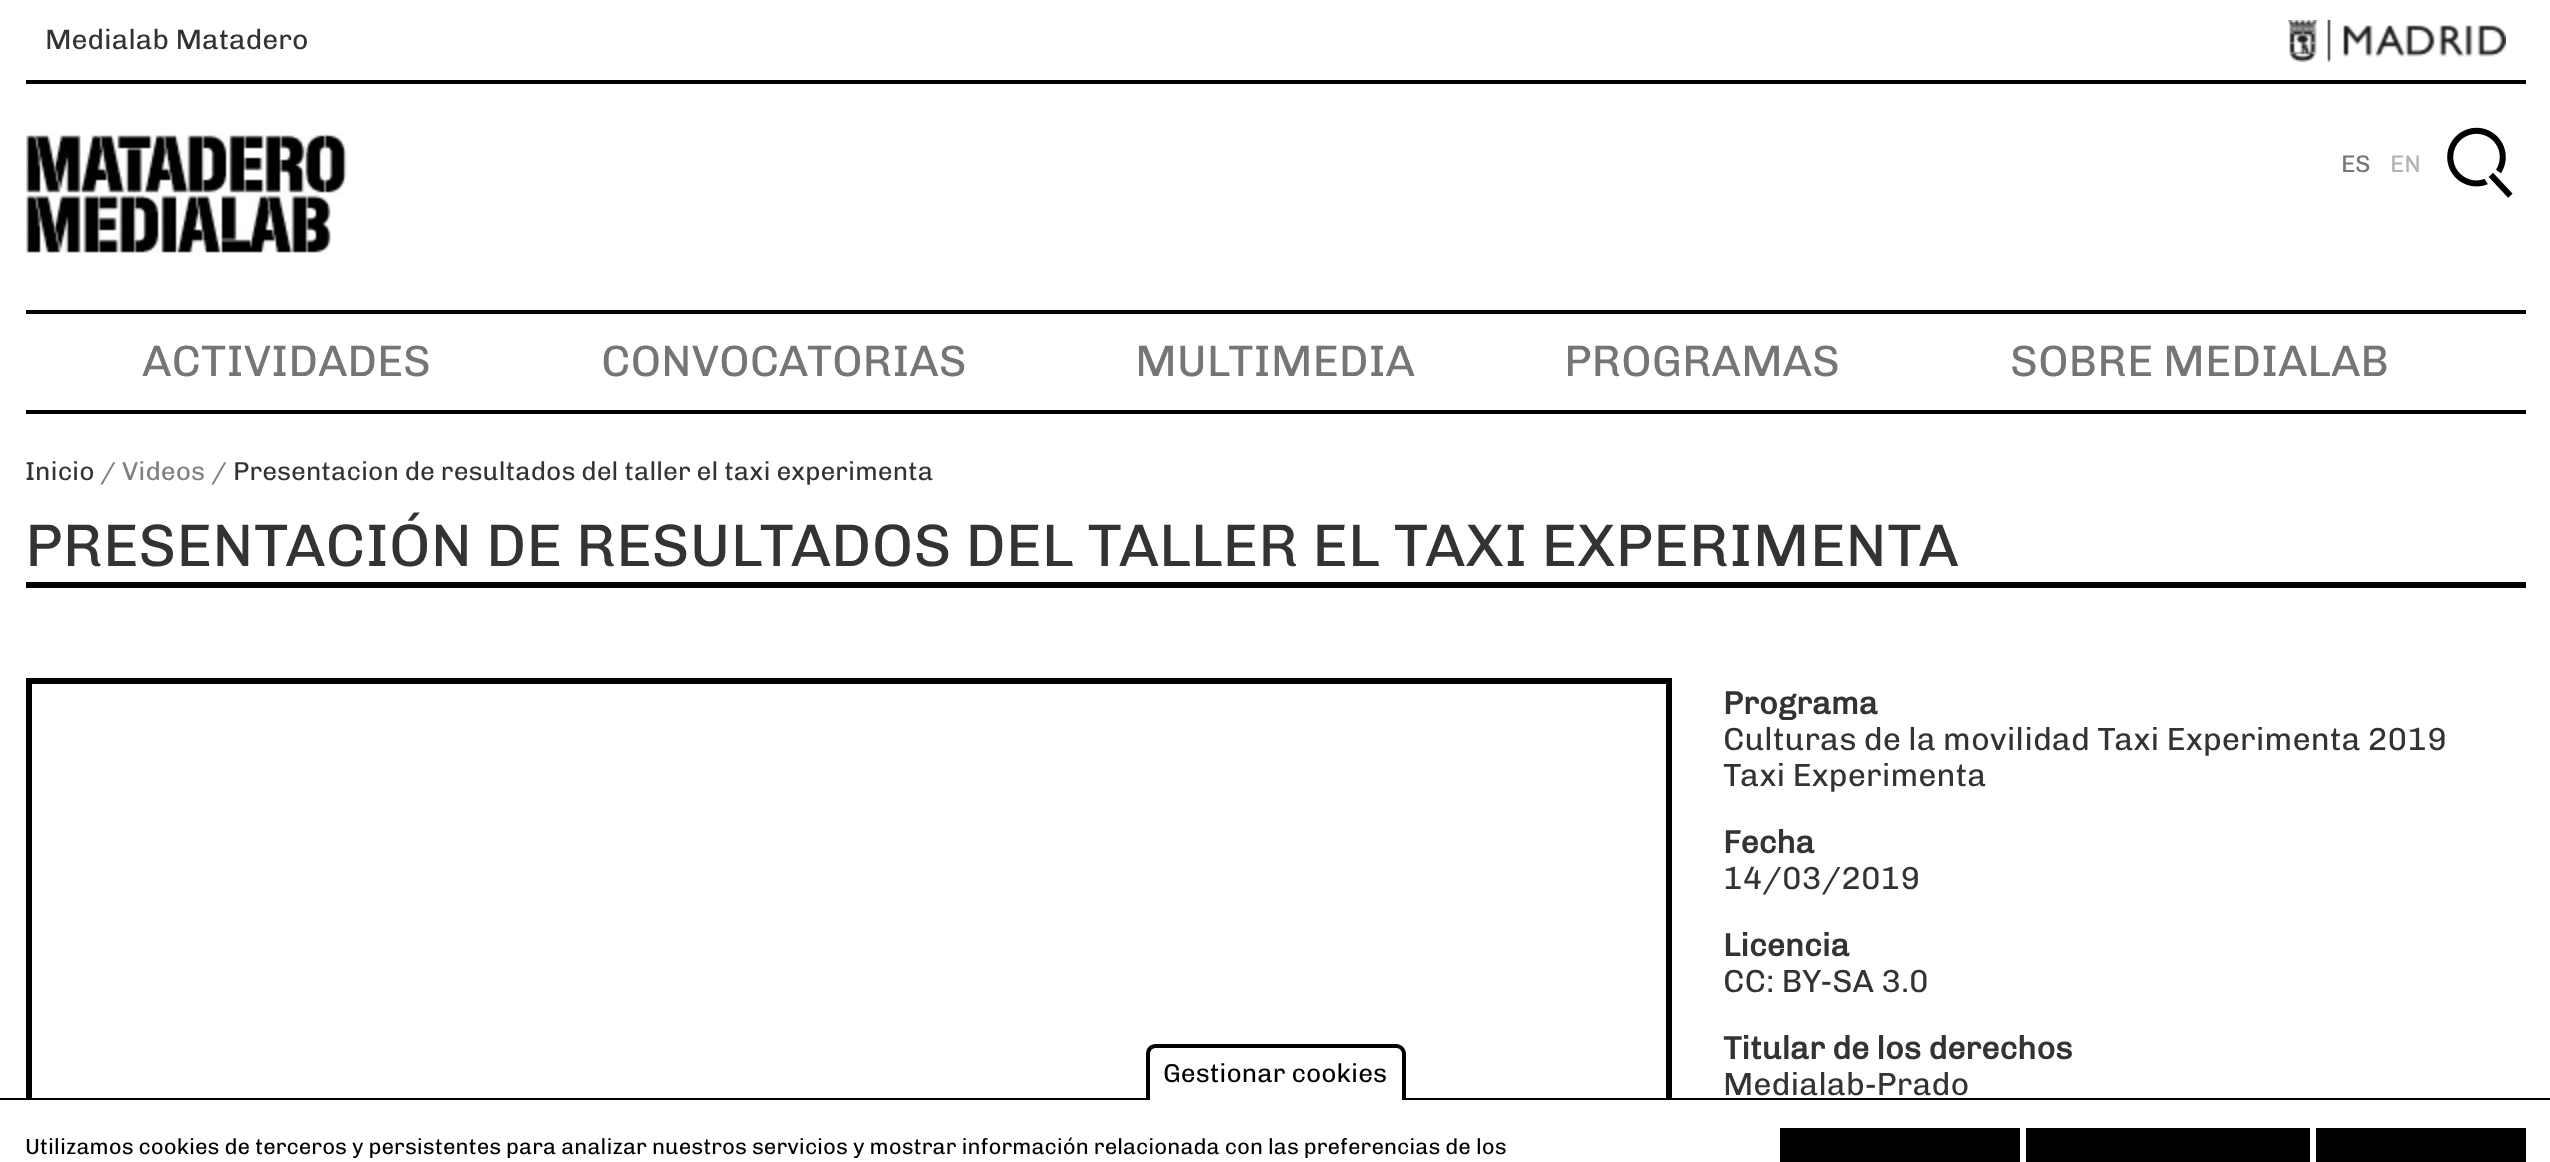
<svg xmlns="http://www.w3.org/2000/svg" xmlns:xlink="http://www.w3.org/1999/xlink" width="2550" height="1162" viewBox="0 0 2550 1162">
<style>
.cls-1{font:500 28px Chivo;fill:#333333}
.cls-2{font:500 24px Chivo;fill:#757575}
.cls-3{font:500 24px Chivo;fill:#b3b3b3}
.cls-4{font:500 44px Chivo;fill:#757575}
.cls-5{font:500 26px Chivo;fill:#333333}
.cls-6{font:500 26px Chivo;fill:#808080}
.cls-7{font:500 60px Chivo;fill:#333333}
.cls-8{font:bold 32px Chivo;fill:#333333}
.cls-9{font:500 32px Chivo;fill:#333333}
.cls-10{font:500 26px Chivo;fill:#000000}
.cls-11{font:500 22px Chivo;fill:#000000}
</style>
<rect width="100%" height="100%" fill="#ffffff"/>
<rect fill="#000000" x="26" y="80" width="2500" height="4"/>
<image xlink:href="image0.png" x="2288" y="20" width="218" height="42"/>
<image xlink:href="image1.png" x="26" y="134" width="321" height="120"/>
<image xlink:href="image2.png" x="2447" y="127" width="66" height="71"/>
<rect fill="#000000" x="26" y="310" width="2500" height="4"/>
<rect fill="#000000" x="26" y="410" width="2500" height="4"/>
<rect fill="#000000" x="26" y="582" width="2500" height="6"/>
<rect fill="none" stroke="#000000" stroke-width="6" x="29" y="681" width="1640" height="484"/>
<rect fill="#ffffff" x="26" y="1100" width="1646" height="62"/>
<rect fill="#000000" x="0" y="1098" width="2550" height="2"/>
<path fill="#ffffff" d="M1156 1044H1396C1401.5 1044 1406 1048.5 1406 1054V1100H1146V1054C1146 1048.5 1150.5 1044 1156 1044Z"/>
<path fill="#000000" fill-rule="evenodd" d="M1156 1044H1396C1401 1044 1406 1048 1406 1054V1100H1146V1054C1146 1048 1150 1044 1156 1044ZM1156 1048H1396C1399 1048 1402 1050 1402 1054V1100H1150V1054C1150 1050 1153 1048 1156 1048Z"/>
<rect fill="#000000" x="1780" y="1128" width="240" height="34"/>
<rect fill="#000000" x="2026" y="1128" width="284" height="34"/>
<rect fill="#000000" x="2316" y="1128" width="210" height="34"/>
<text class="cls-1" x="45" y="49">Medialab Matadero</text>
<text class="cls-2" x="2341" y="172">ES</text>
<text class="cls-3" x="2390" y="172">EN</text>
<text class="cls-4" x="142" y="376">ACTIVIDADES</text>
<text class="cls-4" x="601" y="376">CONVOCATORIAS</text>
<text class="cls-4" x="1135" y="376">MULTIMEDIA</text>
<text class="cls-4" x="1564" y="376">PROGRAMAS</text>
<text class="cls-4" x="2010" y="376">SOBRE MEDIALAB</text>
<text class="cls-5" x="25" y="480">Inicio</text>
<text class="cls-6" x="100" y="480">/ Videos /</text>
<text class="cls-5" x="233" y="480">Presentacion de resultados del taller el taxi experimenta</text>
<text class="cls-7" x="25" y="566">PRESENTACIÓN DE RESULTADOS DEL TALLER EL TAXI EXPERIMENTA</text>
<text class="cls-8" x="1723" y="714">Programa</text>
<text class="cls-9"><tspan x="1723" y="750">Culturas de la movilidad Taxi Experimenta 2019</tspan><tspan x="1723" y="786">Taxi Experimenta</tspan></text>
<text class="cls-8" x="1723" y="853">Fecha</text>
<text class="cls-9" x="1723" y="889">14/03/2019</text>
<text class="cls-8" x="1723" y="956">Licencia</text>
<text class="cls-9" x="1723" y="992">CC: BY-SA 3.0</text>
<text class="cls-8" x="1723" y="1059">Titular de los derechos</text>
<text class="cls-9" x="1723" y="1095">Medialab-Prado</text>
<text class="cls-10" x="1163" y="1082">Gestionar cookies</text>
<text class="cls-11" x="25" y="1154">Utilizamos cookies de terceros y persistentes para analizar nuestros servicios y mostrar información relacionada con las preferencias de los</text>
</svg>
